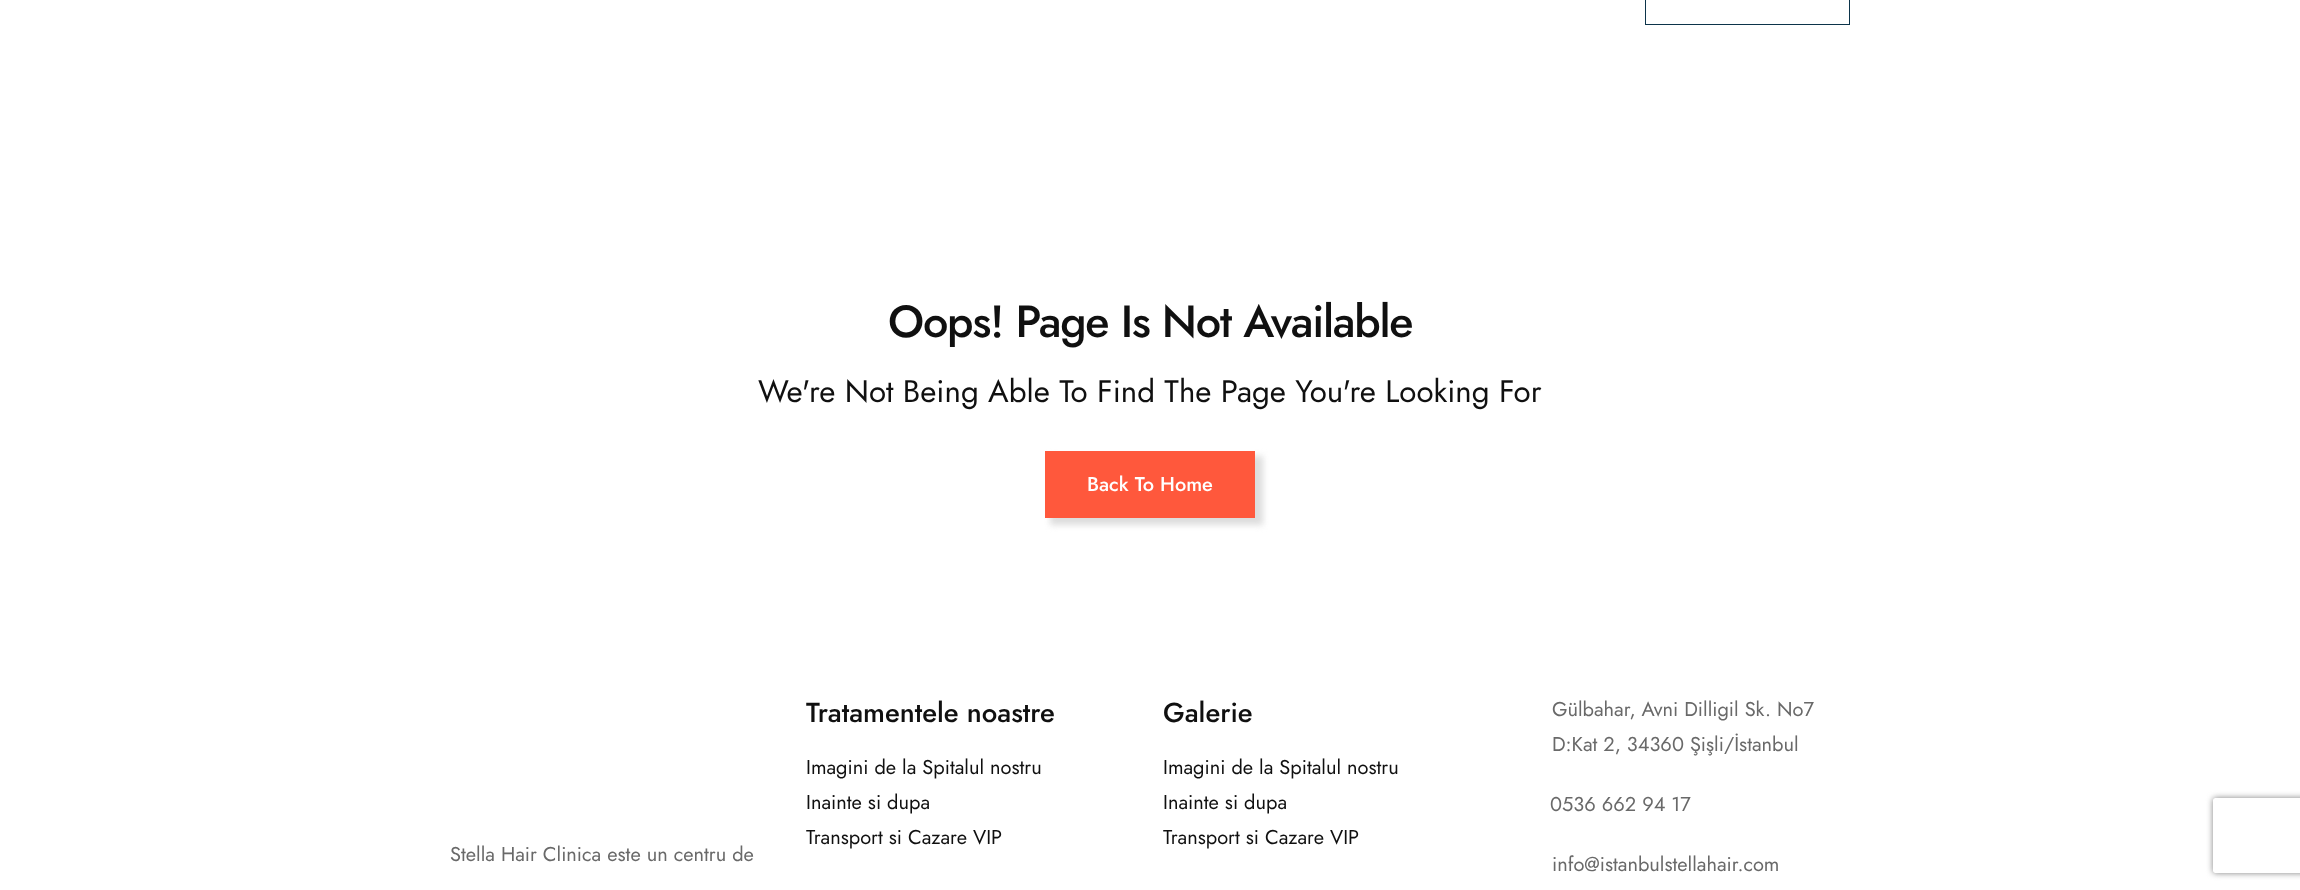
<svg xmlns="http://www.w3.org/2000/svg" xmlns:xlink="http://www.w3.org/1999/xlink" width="2300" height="890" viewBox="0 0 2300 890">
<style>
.cls-1{font:500 45px Jost;letter-spacing:-1.25px;fill:#101010}
.cls-2{font:31.25px Jost;fill:#101010}
.cls-3{font:500 20px Jost;fill:#ffffff}
.cls-4{font:20px Jost;fill:#696969}
.cls-5{font:500 27.5px Jost;fill:#101010}
.cls-6{font:20px Jost;fill:#101010}
</style>
<defs>
<clipPath id="clip1"><path d="M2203 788H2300V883H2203ZM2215.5 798H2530.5C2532 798 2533 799 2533 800.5V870.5C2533 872 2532 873 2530.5 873H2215.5C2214 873 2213 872 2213 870.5V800.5C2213 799 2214 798 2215.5 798Z" clip-rule="evenodd"/></clipPath>
</defs>
<rect width="100%" height="100%" fill="#ffffff"/>
<rect fill="none" stroke="#0c344a" x="1645.5" y="-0.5" width="204" height="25"/>
<rect fill="#dddddd" filter="blur(3px)" x="1050" y="456" width="213" height="69"/>
<rect fill="#ff583c" x="1045" y="451" width="210" height="67"/>
<g clip-path="url(#clip1)">
<rect fill="#808080" filter="blur(3px)" x="2213" y="798" width="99" height="75" rx="2.5"/>
</g>
<text class="cls-1" x="888" y="337">Oops! Page Is Not Available</text>
<text class="cls-2" x="758" y="402">We're Not Being Able To Find The Page You're Looking For</text>
<text class="cls-3" x="1087" y="491">Back To Home</text>
<text class="cls-4" x="450" y="861">Stella Hair Clinica este un centru de</text>
<text class="cls-5" x="806" y="722">Tratamentele noastre</text>
<text class="cls-6"><tspan x="806" y="774">Imagini de la Spitalul nostru</tspan><tspan x="806" y="809">Inainte si dupa</tspan><tspan x="806" y="844">Transport si Cazare VIP</tspan></text>
<text class="cls-5" x="1163" y="722">Galerie</text>
<text class="cls-6"><tspan x="1163" y="774">Imagini de la Spitalul nostru</tspan><tspan x="1163" y="809">Inainte si dupa</tspan><tspan x="1163" y="844">Transport si Cazare VIP</tspan></text>
<text class="cls-4"><tspan x="1552" y="716">Gülbahar, Avni Dilligil Sk. No7</tspan><tspan x="1552" y="751">D:Kat 2, 34360 Şişli/İstanbul</tspan></text>
<text class="cls-4" x="1550" y="811">0536 662 94 17</text>
<text class="cls-4" x="1552" y="871">info@istanbulstellahair.com</text>
</svg>
